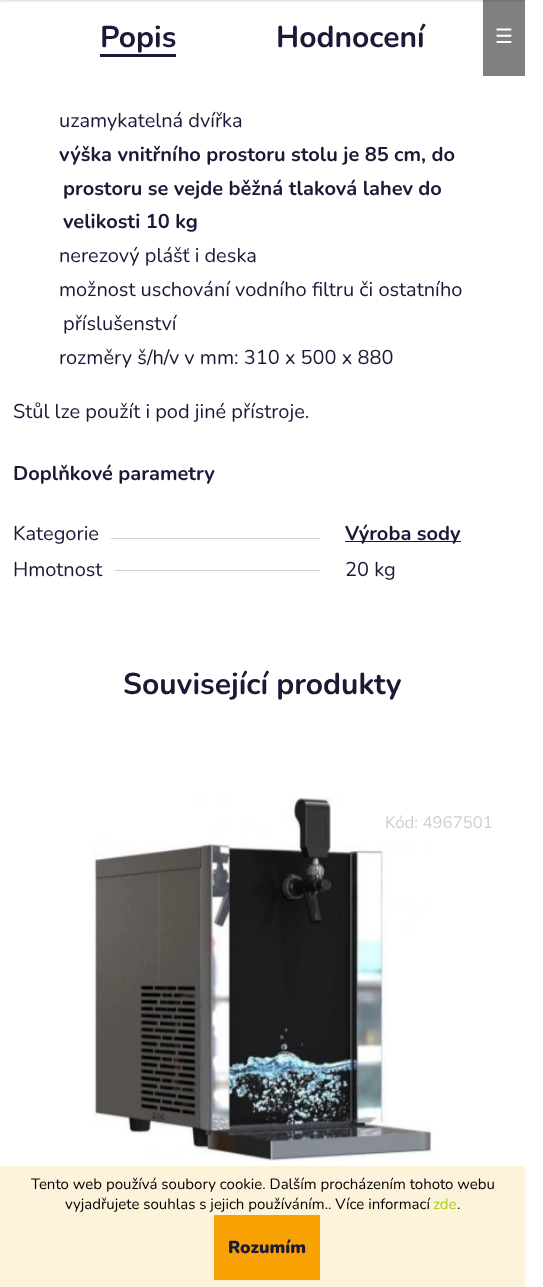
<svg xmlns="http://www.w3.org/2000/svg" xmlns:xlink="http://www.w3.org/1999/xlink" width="543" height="1287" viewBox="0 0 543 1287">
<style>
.cls-1{font:bold 30px Nunito;fill:#1a1937}
.cls-2{font:20px DejaVu Sans;fill:#ffffff}
.cls-3{font:20px Nunito;fill:#1a1937}
.cls-4{font:bold 20px Nunito;fill:#1a1937}
.cls-5{font:16.75px Nunito;fill:#cfcfcf}
.cls-6{font:15px Nunito;fill:#000000}
.cls-7{font:15px Nunito;fill:#aacf24}
.cls-8{font:900 17.5px Nunito;fill:#1a1937}
</style>
<rect width="100%" height="100%" fill="#ffffff"/>
<rect fill="#808080" x="483" y="0" width="42" height="76"/>
<rect fill="#000000" fill-opacity="0.16" filter="blur(1px)" x="0" y="-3" width="525" height="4"/>
<rect fill="#1a1937" x="100" y="54" width="76" height="3"/>
<rect fill="#cfcfcf" x="111" y="538" width="209" height="1"/>
<rect fill="#1a1937" x="345" y="541" width="116" height="1"/>
<rect fill="#cfcfcf" x="115" y="570" width="205" height="1"/>
<image xlink:href="image0.png" x="93" y="797" width="340" height="364"/>
<rect fill="#fdf3da" x="0" y="1166" width="525" height="121"/>
<rect fill="#f8a102" x="214" y="1215" width="106" height="65"/>
<text class="cls-1" x="100" y="47">Popis</text>
<text class="cls-1" x="276" y="47">Hodnocení</text>
<text class="cls-2" x="495" y="43">☰</text>
<text class="cls-3" x="59" y="127">uzamykatelná dvířka</text>
<text class="cls-4" x="59" y="161">výška vnitřního prostoru stolu je 85 cm, do</text>
<text class="cls-4"><tspan x="63" y="195">prostoru se vejde běžná tlaková lahev do</tspan><tspan x="63" y="228">velikosti 10 kg</tspan></text>
<text class="cls-3"><tspan x="59" y="262">nerezový plášť i deska</tspan><tspan x="59" y="296">možnost uschování vodního filtru či ostatního</tspan></text>
<text class="cls-3" x="63" y="330">příslušenství</text>
<text class="cls-3" x="59" y="364">rozměry š/h/v v mm: 310 x 500 x 880</text>
<text class="cls-3" x="13" y="418">Stůl lze použít i pod jiné přístroje.</text>
<text class="cls-4" x="13" y="480">Doplňkové parametry</text>
<text class="cls-3" x="13" y="540">Kategorie</text>
<text class="cls-4" x="345" y="540">Výroba sody</text>
<text class="cls-3" x="13" y="576">Hmotnost</text>
<text class="cls-3" x="345" y="576">20 kg</text>
<text class="cls-1" x="123" y="694">Související produkty</text>
<text class="cls-5" x="385" y="828">Kód: 4967501</text>
<text class="cls-6" x="31" y="1189">Tento web používá soubory cookie. Dalším procházením tohoto webu</text>
<text class="cls-6" x="65" y="1209">vyjadřujete souhlas s jejich používáním.. Více informací</text>
<text class="cls-7" x="433" y="1209">zde</text>
<text class="cls-6" x="457" y="1209">.</text>
<text class="cls-8" x="228" y="1253">Rozumím</text>
</svg>
